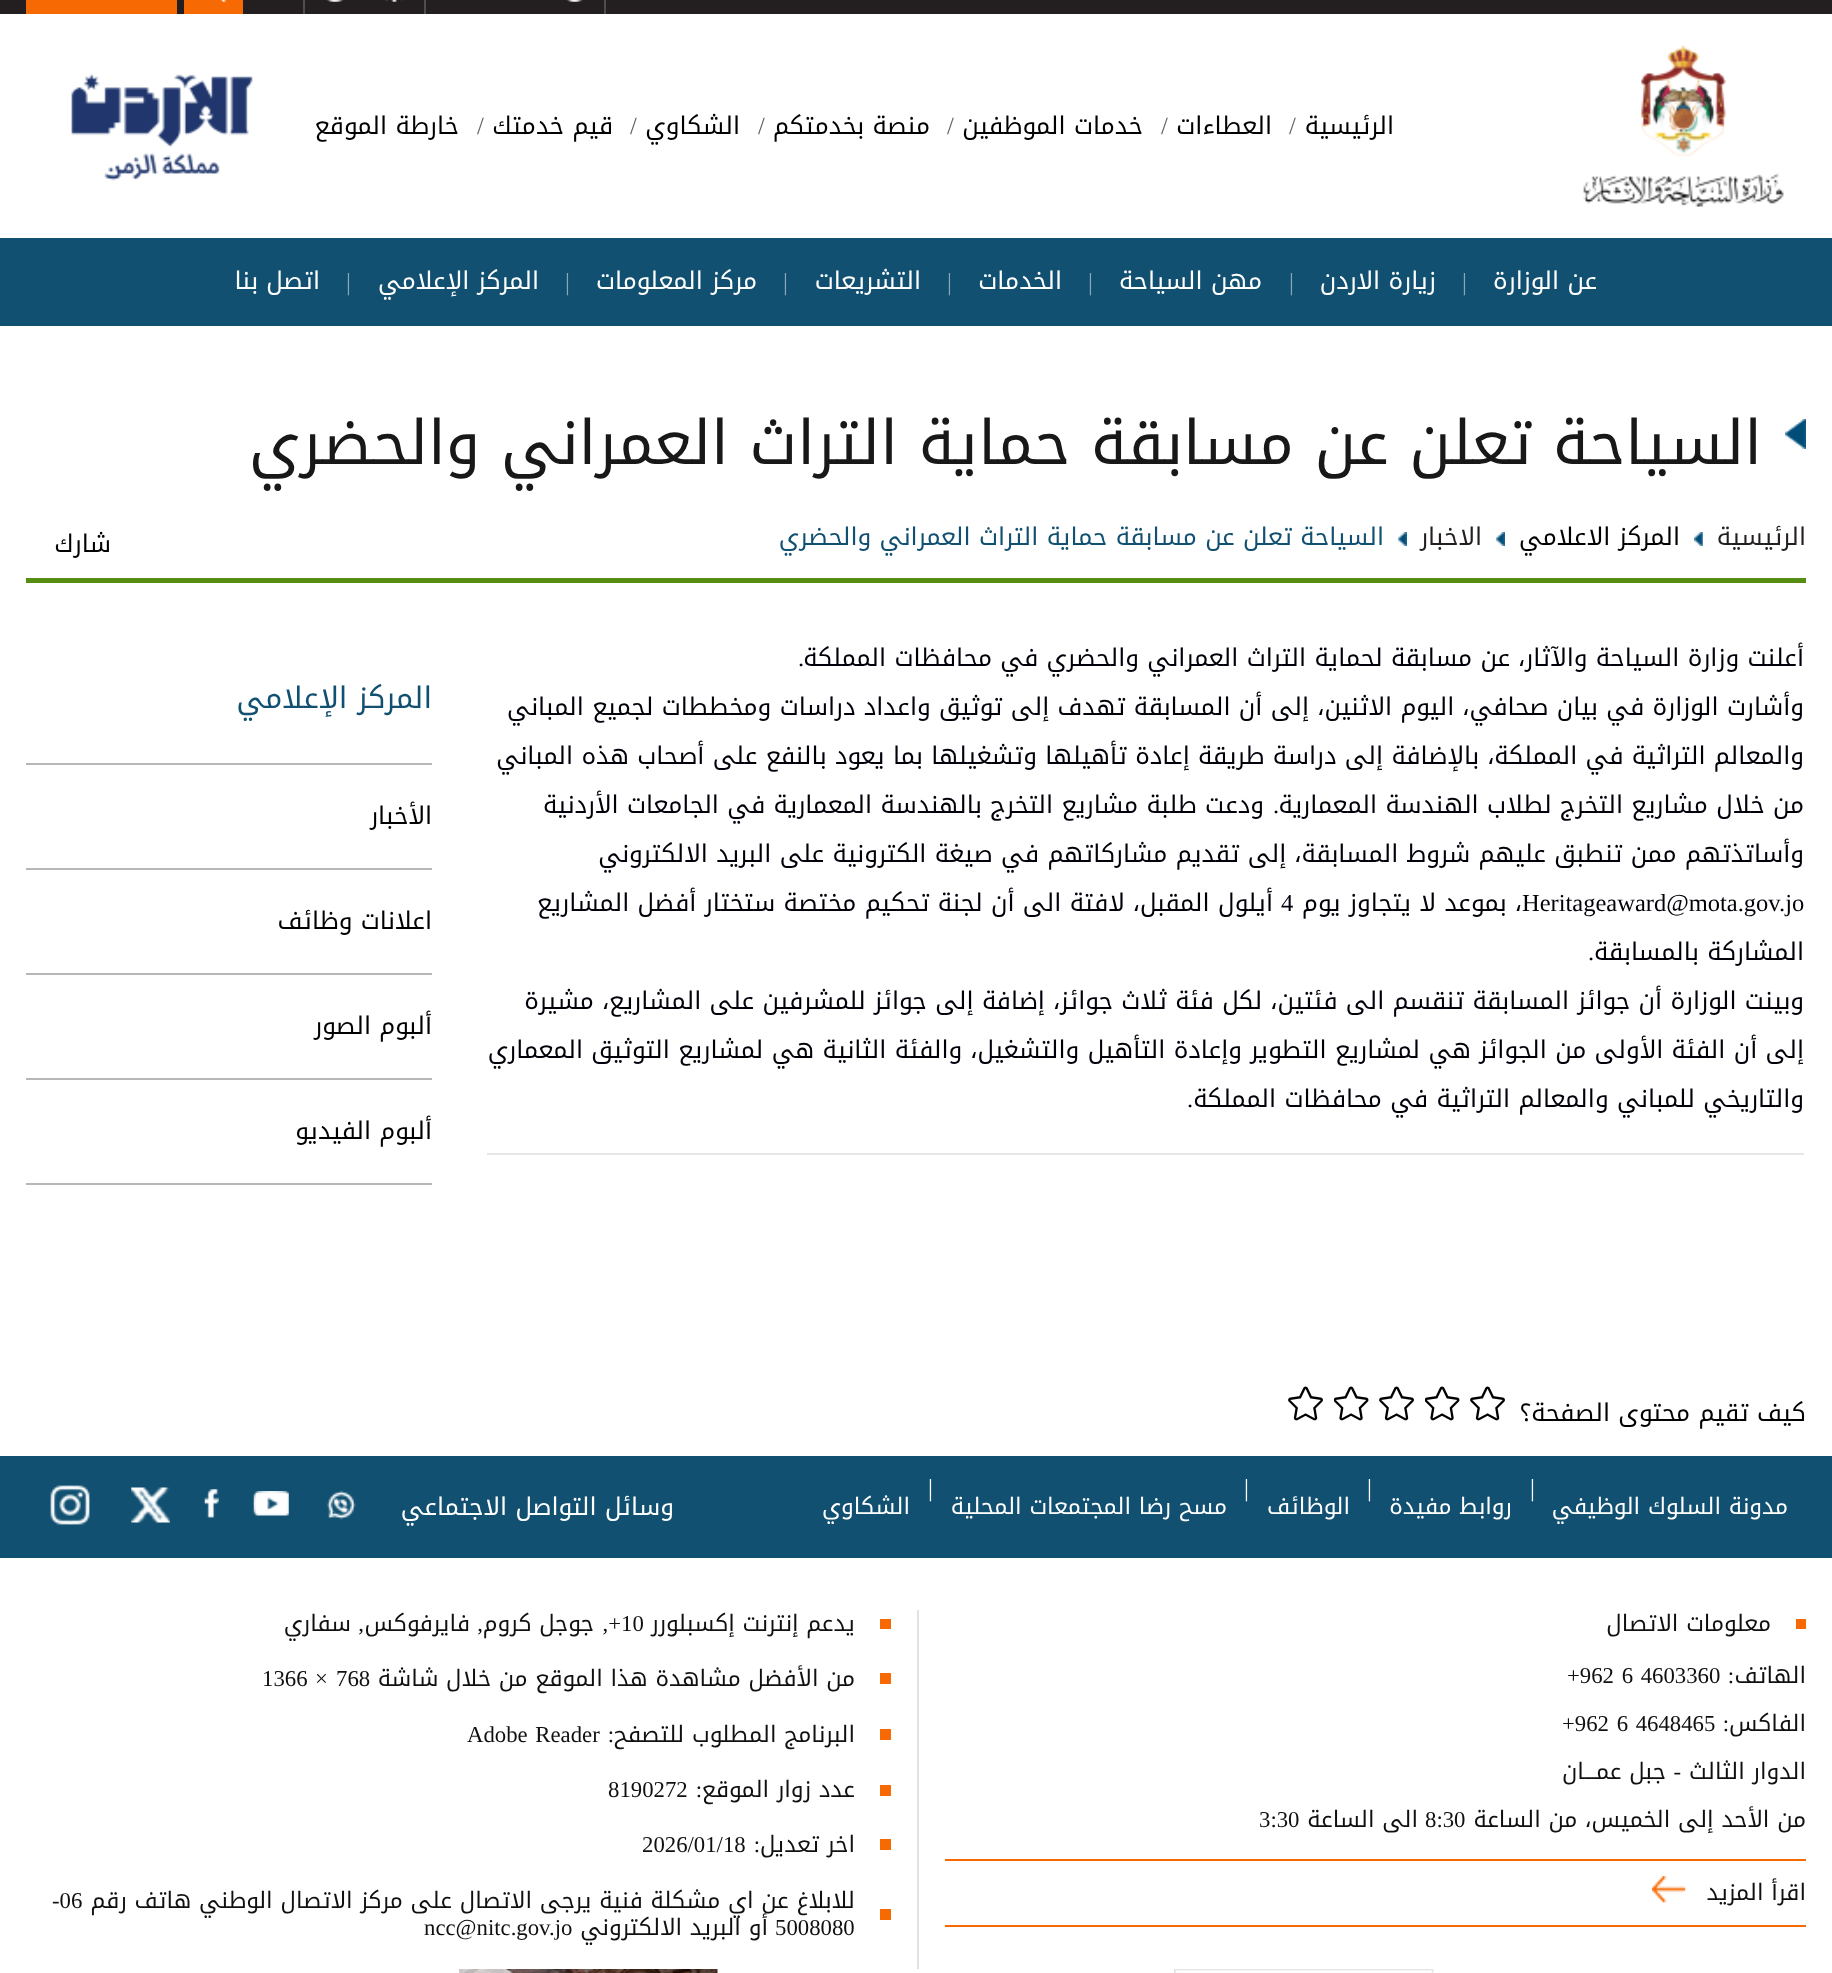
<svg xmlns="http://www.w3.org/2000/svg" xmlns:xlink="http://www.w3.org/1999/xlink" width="1832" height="1973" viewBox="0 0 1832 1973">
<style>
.cls-1{font:24.5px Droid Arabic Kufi;direction:rtl;fill:#000000}
.cls-2{font:24.5px Liberation Serif;fill:#616161}
.cls-3{font:24.5px Droid Arabic Kufi;direction:rtl;fill:#ffffff}
.cls-4{font:24.5px Liberation Serif;fill:#88a8b8}
.cls-5{font:61.25px Droid Arabic Kufi;direction:rtl;fill:#181818}
.cls-6{font:24.5px Droid Arabic Kufi;direction:rtl;fill:#231f20}
.cls-7{font:24.5px Droid Arabic Kufi;direction:rtl;fill:#115071}
.cls-8{font:24.5px Droid Arabic Kufi;direction:rtl;fill:#00000a}
.cls-9{font:24.5px Liberation Serif;direction:rtl;fill:#00000a}
.cls-10{font:24.5px Liberation Serif;fill:#00000a}
.cls-11{font:29.75px Droid Arabic Kufi;direction:rtl;fill:#115071}
.cls-12{font:24.5px Liberation Serif;fill:#ffffff}
.cls-13{font:22.75px Droid Arabic Kufi;direction:rtl;fill:#ffffff}
.cls-14{font:22.75px Droid Arabic Kufi;direction:rtl;fill:#101010}
.cls-15{font:22.75px Liberation Serif;direction:rtl;fill:#101010}
.cls-16{font:22.75px Liberation Serif;fill:#101010}
</style>
<rect width="100%" height="100%" fill="#ffffff"/>
<rect fill="#231f20" x="0" y="0" width="1832" height="14"/>
<rect fill="#4f4c4d" x="604" y="0" width="2" height="14"/>
<image xlink:href="image0.png" x="566" y="0" width="17" height="2"/>
<rect fill="#4f4c4d" x="424" y="0" width="2" height="14"/>
<image xlink:href="image1.png" x="384" y="0" width="19" height="2"/>
<image xlink:href="image2.png" x="326" y="0" width="18" height="2"/>
<rect fill="#4f4c4d" x="303" y="0" width="2" height="14"/>
<rect fill="#f76902" x="184" y="0" width="59" height="14"/>
<image xlink:href="image3.png" x="220" y="0" width="6" height="2"/>
<rect fill="#f76902" x="26" y="0" width="151" height="14"/>
<image xlink:href="image4.png" x="1583" y="45" width="201" height="162"/>
<image xlink:href="image5.png" x="71" y="73" width="182" height="108"/>
<rect fill="#115071" x="0" y="238" width="1832" height="88"/>
<image xlink:href="image6.png" x="1785" y="419" width="21" height="30"/>
<image xlink:href="image7.png" x="1694" y="532" width="9" height="14"/>
<image xlink:href="image8.png" x="1496" y="532" width="9" height="14"/>
<image xlink:href="image8.png" x="1398" y="532" width="9" height="14"/>
<rect fill="#568d13" x="26" y="578" width="1780" height="5"/>
<rect fill="#e6e6e6" x="487" y="1153" width="1317" height="2"/>
<rect fill="#b7b7b7" x="26" y="763" width="406" height="2"/>
<rect fill="#b7b7b7" x="26" y="868" width="406" height="2"/>
<rect fill="#b7b7b7" x="26" y="973" width="406" height="2"/>
<rect fill="#b7b7b7" x="26" y="1078" width="406" height="2"/>
<rect fill="#b7b7b7" x="26" y="1183" width="406" height="2"/>
<image xlink:href="image9.png" x="1470" y="1386" width="35" height="35"/>
<image xlink:href="image10.png" x="1425" y="1386" width="35" height="35"/>
<image xlink:href="image9.png" x="1379" y="1386" width="35" height="35"/>
<image xlink:href="image10.png" x="1334" y="1386" width="35" height="35"/>
<image xlink:href="image9.png" x="1288" y="1386" width="35" height="35"/>
<rect fill="#115071" x="0" y="1456" width="1832" height="102"/>
<image xlink:href="image11.png" x="327" y="1490" width="29" height="30"/>
<image xlink:href="image12.png" x="253" y="1491" width="36" height="25"/>
<image xlink:href="image13.png" x="204" y="1489" width="15" height="29"/>
<image xlink:href="image14.png" x="131" y="1487" width="39" height="36"/>
<image xlink:href="image15.png" x="50" y="1485" width="40" height="40"/>
<rect fill="#dee2e6" x="917" y="1610" width="2" height="359"/>
<rect fill="#f76902" x="1796" y="1619" width="10" height="10"/>
<rect fill="#f76902" x="945" y="1859" width="861" height="2"/>
<rect fill="#f76902" x="945" y="1925" width="861" height="2"/>
<image xlink:href="image16.png" x="1652" y="1876" width="34" height="27"/>
<rect fill="#f76902" x="880" y="1619" width="11" height="10"/>
<rect fill="#f76902" x="880" y="1673" width="11" height="11"/>
<rect fill="#f76902" x="880" y="1729" width="11" height="11"/>
<rect fill="#f76902" x="880" y="1785" width="11" height="11"/>
<rect fill="#f76902" x="880" y="1839" width="11" height="11"/>
<rect fill="#f76902" x="880" y="1909" width="11" height="11"/>
<image xlink:href="image17.png" x="1174" y="1969" width="260" height="4"/>
<image xlink:href="image18.png" x="459" y="1969" width="259" height="4"/>
<text class="cls-1" x="1394" y="134">الرئيسية</text>
<text class="cls-2" x="1289" y="134">/</text>
<text class="cls-1" x="1272" y="134">العطاءات</text>
<text class="cls-2" x="1161" y="134">/</text>
<text class="cls-1" x="1143" y="134">خدمات الموظفين</text>
<text class="cls-2" x="947" y="134">/</text>
<text class="cls-1" x="930" y="134">منصة بخدمتكم</text>
<text class="cls-2" x="758" y="134">/</text>
<text class="cls-1" x="740" y="134">الشكاوي</text>
<text class="cls-2" x="630" y="134">/</text>
<text class="cls-1" x="613" y="134">قيم خدمتك</text>
<text class="cls-2" x="477" y="134">/</text>
<text class="cls-1" x="459" y="134">خارطة الموقع</text>
<text class="cls-3" x="1597" y="289">عن الوزارة</text>
<text class="cls-4" x="1462" y="290">|</text>
<text class="cls-3" x="1436" y="289">زيارة الاردن</text>
<text class="cls-4" x="1289" y="290">|</text>
<text class="cls-3" x="1262" y="289">مهن السياحة</text>
<text class="cls-4" x="1088" y="290">|</text>
<text class="cls-3" x="1062" y="289">الخدمات</text>
<text class="cls-4" x="947" y="290">|</text>
<text class="cls-3" x="921" y="289">التشريعات</text>
<text class="cls-4" x="783" y="290">|</text>
<text class="cls-3" x="757" y="289">مركز المعلومات</text>
<text class="cls-4" x="565" y="290">|</text>
<text class="cls-3" x="539" y="289">المركز الإعلامي</text>
<text class="cls-4" x="346" y="290">|</text>
<text class="cls-3" x="320" y="289">اتصل بنا</text>
<text class="cls-5" x="1762" y="464">السياحة تعلن عن مسابقة حماية التراث العمراني والحضري</text>
<text class="cls-6" x="1806" y="545">الرئيسية</text>
<text class="cls-1" x="1680" y="545">المركز الاعلامي</text>
<text class="cls-6" x="1482" y="545">الاخبار</text>
<text class="cls-7" x="1384" y="545">السياحة تعلن عن مسابقة حماية التراث العمراني والحضري</text>
<text class="cls-1" x="111" y="552">شارك</text>
<text class="cls-8" x="1804" y="666">أعلنت وزارة السياحة والآثار، عن مسابقة لحماية التراث العمراني والحضري في محافظات المملكة</text>
<text class="cls-9" x="804" y="666">.</text>
<text class="cls-8" x="1804" y="715">وأشارت الوزارة في بيان صحافي، اليوم الاثنين، إلى أن المسابقة تهدف إلى توثيق واعداد دراسات ومخططات لجميع المباني</text>
<text class="cls-8" x="1804" y="764">والمعالم التراثية في المملكة، بالإضافة إلى دراسة طريقة إعادة تأهيلها وتشغيلها بما يعود بالنفع على أصحاب هذه المباني</text>
<text class="cls-8" x="1804" y="813">من خلال مشاريع التخرج لطلاب الهندسة المعمارية</text>
<text class="cls-9" x="1279" y="813">.</text>
<text class="cls-8" x="1264" y="813">ودعت طلبة مشاريع التخرج بالهندسة المعمارية في الجامعات الأردنية</text>
<text class="cls-8" x="1804" y="862">وأساتذتهم ممن تنطبق عليهم شروط المسابقة، إلى تقديم مشاركاتهم في صيغة الكترونية على البريد الالكتروني</text>
<text class="cls-10" x="1522" y="911">Heritageaward@mota.gov.jo</text>
<text class="cls-8" x="1522" y="911">، بموعد لا يتجاوز يوم</text>
<text class="cls-10" x="1281" y="911">4</text>
<text class="cls-8" x="1273" y="911">أيلول المقبل، لافتة الى أن لجنة تحكيم مختصة ستختار أفضل المشاريع</text>
<text class="cls-8" x="1804" y="960">المشاركة بالمسابقة</text>
<text class="cls-9" x="1594" y="960">.</text>
<text class="cls-8" x="1804" y="1009">وبينت الوزارة أن جوائز المسابقة تنقسم الى فئتين، لكل فئة ثلاث جوائز، إضافة إلى جوائز للمشرفين على المشاريع، مشيرة</text>
<text class="cls-8" x="1804" y="1058">إلى أن الفئة الأولى من الجوائز هي لمشاريع التطوير وإعادة التأهيل والتشغيل، والفئة الثانية هي لمشاريع التوثيق المعماري</text>
<text class="cls-8" x="1804" y="1107">والتاريخي للمباني والمعالم التراثية في محافظات المملكة</text>
<text class="cls-9" x="1193" y="1107">.</text>
<text class="cls-11" x="432" y="708">المركز الإعلامي</text>
<text class="cls-1" x="432" y="824">الأخبار</text>
<text class="cls-1" x="432" y="929">اعلانات وظائف</text>
<text class="cls-1" x="432" y="1034">ألبوم الصور</text>
<text class="cls-1" x="432" y="1139">ألبوم الفيديو</text>
<text class="cls-1" x="1806" y="1421">كيف تقيم محتوى الصفحة؟</text>
<text class="cls-12" x="1530" y="1496">|</text>
<text class="cls-13" x="1788" y="1514">مدونة السلوك الوظيفي</text>
<text class="cls-12" x="1367" y="1496">|</text>
<text class="cls-13" x="1512" y="1514">روابط مفيدة</text>
<text class="cls-12" x="1244" y="1496">|</text>
<text class="cls-13" x="1350" y="1514">الوظائف</text>
<text class="cls-12" x="928" y="1496">|</text>
<text class="cls-13" x="1227" y="1514">مسح رضا المجتمعات المحلية</text>
<text class="cls-13" x="910" y="1514">الشكاوي</text>
<text class="cls-3" x="674" y="1515">وسائل التواصل الاجتماعي</text>
<text class="cls-14" x="1771" y="1631">معلومات الاتصال</text>
<text class="cls-14" x="1806" y="1683">الهاتف</text>
<text class="cls-15" x="1734" y="1683">:</text>
<text class="cls-16" x="1567" y="1683" word-spacing="2">+962 6 4603360</text>
<text class="cls-14" x="1806" y="1731">الفاكس</text>
<text class="cls-15" x="1729" y="1731">:</text>
<text class="cls-16" x="1562" y="1731" word-spacing="2">+962 6 4648465</text>
<text class="cls-14" x="1806" y="1779">الدوار الثالث</text>
<text class="cls-15" x="1681" y="1779">-</text>
<text class="cls-14" x="1666" y="1779">جبل عمـــان</text>
<text class="cls-14" x="1806" y="1827">من الأحد إلى الخميس، من الساعة</text>
<text class="cls-16" x="1425" y="1827">8:30</text>
<text class="cls-14" x="1418" y="1827">الى الساعة</text>
<text class="cls-16" x="1259" y="1827">3:30</text>
<text class="cls-14" x="1806" y="1900">اقرأ المزيد</text>
<text class="cls-14" x="855" y="1631">يدعم إنترنت إكسبلورر</text>
<text class="cls-16" x="621" y="1631">10</text>
<text class="cls-15" x="621" y="1631">+,</text>
<text class="cls-14" x="594" y="1631">جوجل كروم</text>
<text class="cls-14" x="470" y="1631">فايرفوكس</text>
<text class="cls-14" x="351" y="1631">سفاري</text>
<text class="cls-15" x="483" y="1631">,</text>
<text class="cls-15" x="364" y="1631">,</text>
<text class="cls-14" x="855" y="1686">من الأفضل مشاهدة هذا الموقع من خلال شاشة</text>
<text class="cls-16" x="336" y="1686">768</text>
<text class="cls-16" x="315" y="1686">×</text>
<text class="cls-16" x="262" y="1686">1366</text>
<text class="cls-14" x="855" y="1742">البرنامج المطلوب للتصفح</text>
<text class="cls-15" x="614" y="1742">:</text>
<text class="cls-16" x="467" y="1742" word-spacing="2">Adobe Reader</text>
<text class="cls-14" x="855" y="1797">عدد زوار الموقع</text>
<text class="cls-15" x="702" y="1797">:</text>
<text class="cls-16" x="608" y="1797">8190272</text>
<text class="cls-14" x="855" y="1852">اخر تعديل</text>
<text class="cls-15" x="760" y="1852">:</text>
<text class="cls-16" x="642" y="1852">2026/01/18</text>
<text class="cls-14" x="855" y="1908">للابلاغ عن اي مشكلة فنية يرجى الاتصال على مركز الاتصال الوطني هاتف رقم</text>
<text class="cls-16" x="52" y="1908">-06</text>
<text class="cls-16" x="775" y="1935">5008080</text>
<text class="cls-14" x="768" y="1935">أو البريد الالكتروني</text>
<text class="cls-16" x="424" y="1935">ncc@nitc.gov.jo</text>
</svg>
